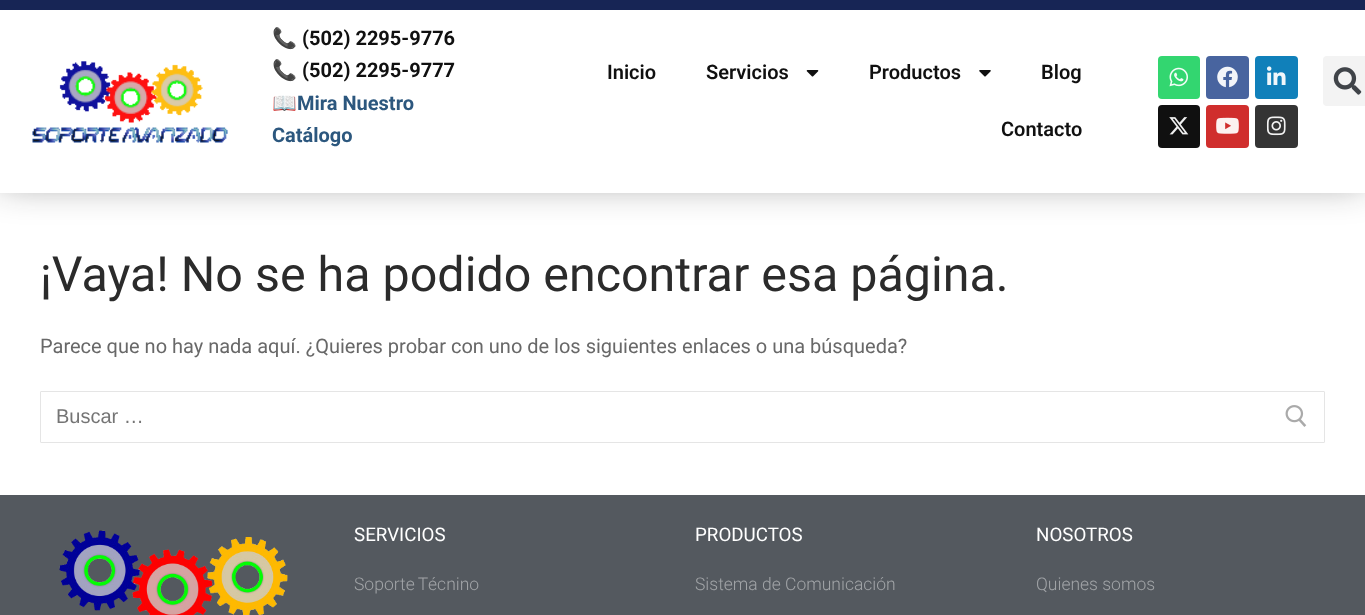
<svg xmlns="http://www.w3.org/2000/svg" xmlns:xlink="http://www.w3.org/1999/xlink" width="1365" height="615" viewBox="0 0 1365 615">
<style>
.cls-1{font:bold 20px Noto Color Emoji;fill:#101010}
.cls-2{font:bold 20px Roboto;fill:#101010}
.cls-3{font:bold 20px Noto Color Emoji;fill:#2c577e}
.cls-4{font:bold 20px Roboto;fill:#2c577e}
.cls-5{font:600 20px Roboto;fill:#101010}
.cls-6{font:48.4px Roboto;fill:#2b2b2b}
.cls-7{font:20px Roboto;fill:#686868}
.cls-8{font:20px Liberation Sans;fill:#757575}
.cls-9{font:18.75px Roboto;fill:#ffffff}
.cls-10{font:300 17.5px Roboto;fill:#a1a4a7}
</style>
<rect width="100%" height="100%" fill="#ffffff"/>
<rect fill="#101010" fill-opacity="0.5" filter="blur(19px)" x="0" y="-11" width="1365" height="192"/>
<rect fill="#ffffff" x="0" y="10" width="1365" height="183"/>
<rect fill="#172555" x="0" y="0" width="1365" height="10"/>
<image xlink:href="image0.png" x="32" y="61" width="196" height="82"/>
<image xlink:href="image1.png" x="806" y="70" width="13" height="7"/>
<image xlink:href="image2.png" x="979" y="70" width="12" height="7"/>
<rect fill="#33d670" x="1158" y="56" width="42" height="43" rx="4"/>
<image xlink:href="image3.png" x="1169" y="67" width="19" height="20"/>
<rect fill="#48649f" x="1206" y="56" width="43" height="43" rx="4"/>
<image xlink:href="image4.png" x="1217" y="66" width="21" height="22"/>
<rect fill="#1080ba" x="1255" y="56" width="43" height="43" rx="4"/>
<image xlink:href="image5.png" x="1267" y="66" width="19" height="19"/>
<rect fill="#101010" x="1158" y="105" width="42" height="43" rx="4"/>
<image xlink:href="image6.png" x="1169" y="117" width="20" height="18"/>
<rect fill="#d02e2d" x="1206" y="105" width="43" height="43" rx="4"/>
<image xlink:href="image7.png" x="1216" y="117" width="23" height="17"/>
<rect fill="#343434" x="1255" y="105" width="43" height="43" rx="4"/>
<image xlink:href="image8.png" x="1266" y="116" width="20" height="20"/>
<rect fill="#f3f3f3" x="1323" y="56" width="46" height="50" rx="4"/>
<image xlink:href="image9.png" x="1333" y="67" width="29" height="28"/>
<rect fill="none" stroke="#e5e5e5" x="40.5" y="391.5" width="1284" height="51" rx="0.5"/>
<image xlink:href="image10.png" x="1285" y="405" width="22" height="22"/>
<rect fill="#54595f" x="0" y="495" width="1365" height="120"/>
<image xlink:href="image11.png" x="59" y="530" width="229" height="85"/>
<text class="cls-1" x="272" y="45">📞</text>
<text class="cls-2" x="302" y="45">(502) 2295-9776</text>
<text class="cls-1" x="272" y="77">📞</text>
<text class="cls-2" x="302" y="77">(502) 2295-9777</text>
<text class="cls-3" x="272" y="110">📖</text>
<text class="cls-4" x="297" y="110">Mira Nuestro</text>
<text class="cls-4" x="272" y="142">Catálogo</text>
<text class="cls-5" x="607" y="79">Inicio</text>
<text class="cls-5" x="706" y="79">Servicios</text>
<text class="cls-5" x="869" y="79">Productos</text>
<text class="cls-5" x="1041" y="79">Blog</text>
<text class="cls-5" x="1001" y="136">Contacto</text>
<text class="cls-6" x="40" y="291">¡Vaya! No se ha podido encontrar esa página.</text>
<text class="cls-7" x="40" y="353">Parece que no hay nada aquí. ¿Quieres probar con uno de los siguientes enlaces o una búsqueda?</text>
<text class="cls-8" x="56" y="423">Buscar …</text>
<text class="cls-9" x="354" y="541">SERVICIOS</text>
<text class="cls-10" x="354" y="590" word-spacing="-1">Soporte Técnino</text>
<text class="cls-9" x="695" y="541">PRODUCTOS</text>
<text class="cls-10" x="695" y="590">Sistema de Comunicación</text>
<text class="cls-9" x="1036" y="541">NOSOTROS</text>
<text class="cls-10" x="1036" y="590">Quienes somos</text>
</svg>
